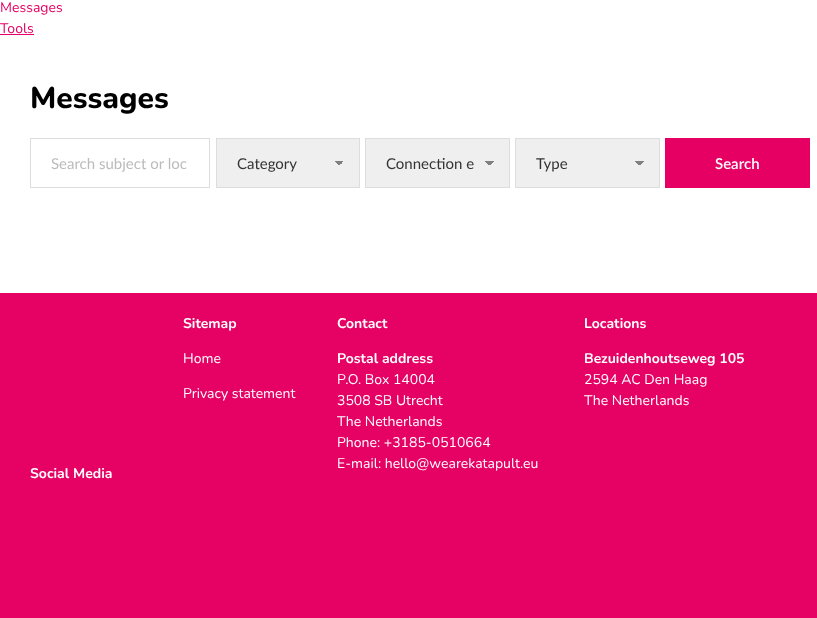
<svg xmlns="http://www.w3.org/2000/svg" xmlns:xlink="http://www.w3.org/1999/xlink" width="817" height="618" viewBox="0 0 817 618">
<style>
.cls-1{font:14px Nunito;fill:#e60064}
.cls-2{font:800 30px Nunito;fill:#000000}
.cls-3{font:15px Lato;fill:#bbbbbb}
.cls-4{font:15px Lato;fill:#333333}
.cls-5{font:600 15px Lato;fill:#ffffff}
.cls-6{font:bold 14px Nunito;fill:#ffffff}
.cls-7{font:14px Nunito;fill:#ffffff}
</style>
<defs>
<linearGradient id="g1" gradientUnits="userSpaceOnUse" x1="339" y1="161" x2="344" y2="166"><stop offset="0.5" stop-color="#808080"/><stop offset="0.5" stop-color="#efefef"/></linearGradient>
<linearGradient id="g2" gradientUnits="userSpaceOnUse" x1="334" y1="166" x2="339" y2="161"><stop offset="0.5" stop-color="#efefef"/><stop offset="0.5" stop-color="#808080"/></linearGradient>
<linearGradient id="g3" gradientUnits="userSpaceOnUse" x1="489" y1="161" x2="494" y2="166"><stop offset="0.5" stop-color="#808080"/><stop offset="0.5" stop-color="#efefef"/></linearGradient>
<linearGradient id="g4" gradientUnits="userSpaceOnUse" x1="484" y1="166" x2="489" y2="161"><stop offset="0.5" stop-color="#efefef"/><stop offset="0.5" stop-color="#808080"/></linearGradient>
<linearGradient id="g5" gradientUnits="userSpaceOnUse" x1="639" y1="161" x2="644" y2="166"><stop offset="0.5" stop-color="#808080"/><stop offset="0.5" stop-color="#efefef"/></linearGradient>
<linearGradient id="g6" gradientUnits="userSpaceOnUse" x1="634" y1="166" x2="639" y2="161"><stop offset="0.5" stop-color="#efefef"/><stop offset="0.5" stop-color="#808080"/></linearGradient>
</defs>
<rect width="100%" height="100%" fill="#ffffff"/>
<rect fill="#e60064" x="0" y="34" width="34" height="1"/>
<rect fill="none" stroke="#dddddd" x="30.5" y="138.5" width="179" height="49"/>
<rect fill="#efefef" x="217" y="139" width="142" height="48"/>
<rect fill="url(#g1)" x="339" y="161" width="5" height="4"/>
<rect fill="url(#g2)" x="334" y="161" width="5" height="4"/>
<rect fill="none" stroke="#dddddd" x="216.5" y="138.5" width="143" height="49"/>
<rect fill="#efefef" x="366" y="139" width="143" height="48"/>
<rect fill="url(#g3)" x="489" y="161" width="5" height="4"/>
<rect fill="url(#g4)" x="484" y="161" width="5" height="4"/>
<rect fill="none" stroke="#dddddd" x="365.5" y="138.5" width="144" height="49"/>
<rect fill="#efefef" x="516" y="139" width="143" height="48"/>
<rect fill="url(#g5)" x="639" y="161" width="5" height="4"/>
<rect fill="url(#g6)" x="634" y="161" width="5" height="4"/>
<rect fill="none" stroke="#dddddd" x="515.5" y="138.5" width="144" height="49"/>
<rect fill="#e60064" x="665" y="138" width="145" height="50"/>
<rect fill="#e60164" x="0" y="293" width="817" height="325"/>
<text class="cls-1"><tspan x="0" y="12">Messages</tspan><tspan x="0" y="33">Tools</tspan></text>
<text class="cls-2" x="30" y="108">Messages</text>
<text class="cls-3" x="51" y="169">Search subject or loc</text>
<text class="cls-4" x="237" y="169">Category</text>
<text class="cls-4" x="386" y="169">Connection e</text>
<text class="cls-4" x="536" y="169">Type</text>
<text class="cls-5" x="715" y="169">Search</text>
<text class="cls-6" x="183" y="328">Sitemap</text>
<text class="cls-7" x="183" y="363">Home</text>
<text class="cls-7" x="183" y="398">Privacy statement</text>
<text class="cls-6" x="337" y="328">Contact</text>
<text class="cls-6" x="337" y="363">Postal address</text>
<text class="cls-7"><tspan x="337" y="384">P.O. Box 14004</tspan><tspan x="337" y="405">3508 SB Utrecht</tspan><tspan x="337" y="426">The Netherlands</tspan><tspan x="337" y="447">Phone: +3185-0510664</tspan><tspan x="337" y="468">E-mail: hello@wearekatapult.eu</tspan></text>
<text class="cls-6" x="584" y="328">Locations</text>
<text class="cls-6" x="584" y="363">Bezuidenhoutseweg 105</text>
<text class="cls-7"><tspan x="584" y="384">2594 AC Den Haag</tspan><tspan x="584" y="405">The Netherlands</tspan></text>
<text class="cls-6" x="30" y="478">Social Media</text>
</svg>
